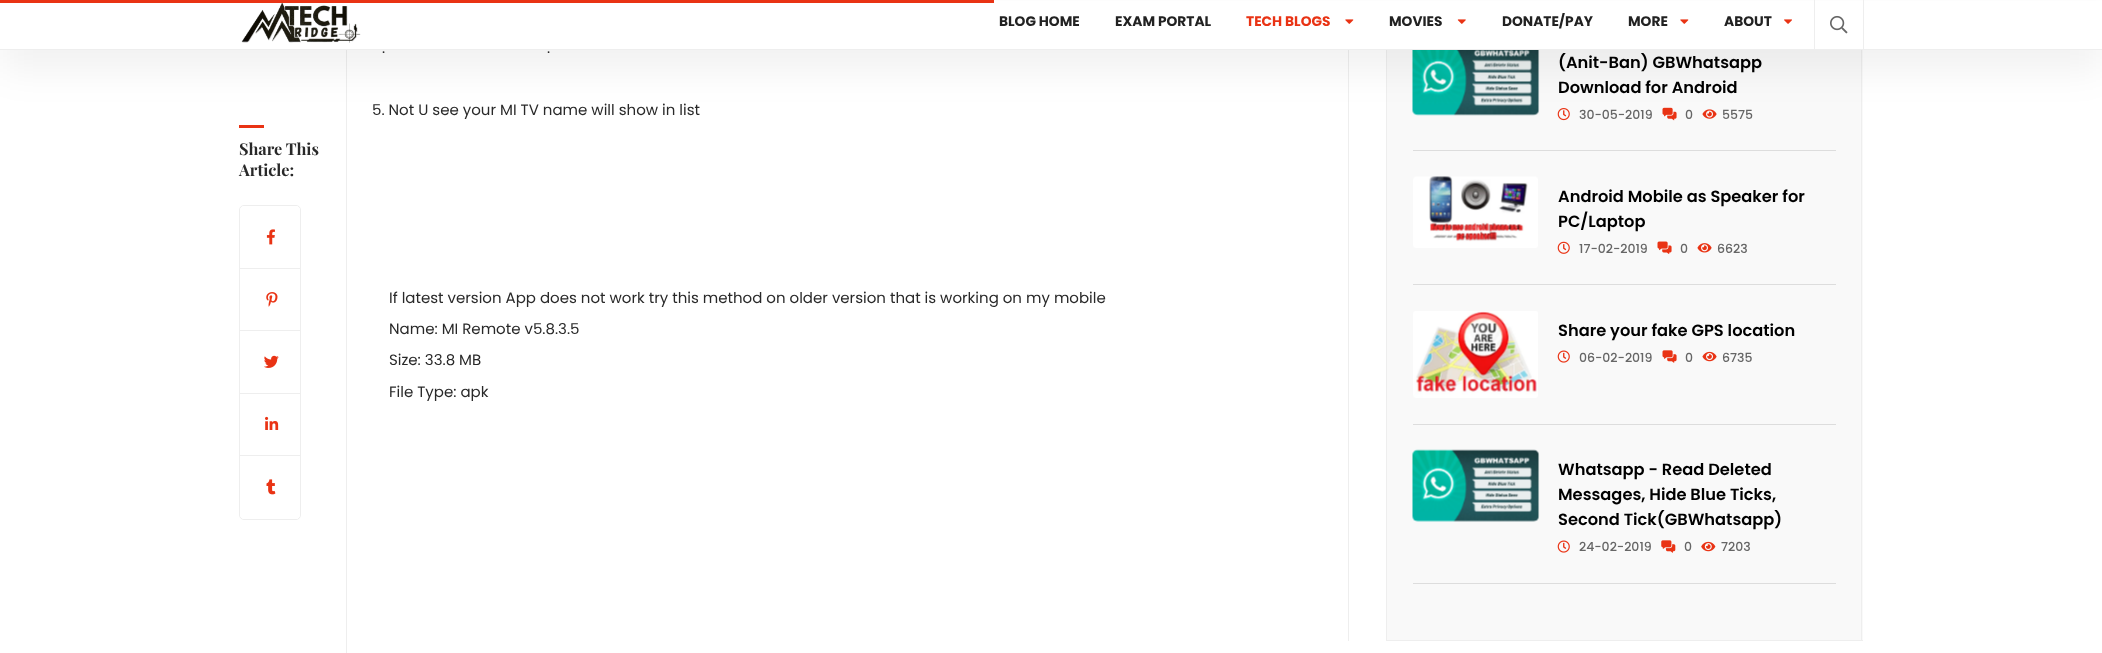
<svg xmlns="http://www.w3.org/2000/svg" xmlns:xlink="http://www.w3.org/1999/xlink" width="2102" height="653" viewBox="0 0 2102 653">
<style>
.cls-1{font:bold 13.75px Poppins;fill:#222222}
.cls-2{font:bold 13.75px Poppins;fill:#e93314}
.cls-3{font:bold 16.25px Playfair Display;fill:#292929}
.cls-4{font:15px Poppins;fill:#292929}
.cls-5{font:600 16.25px Poppins;fill:#000000}
.cls-6{font:500 12.5px Poppins;fill:#666666}
</style>
<rect width="100%" height="100%" fill="#ffffff"/>
<rect fill="#e93314" x="239" y="125" width="25" height="3"/>
<rect fill="#eeeeee" x="346" y="50" width="1" height="603"/>
<rect fill="#eeeeee" x="1348" y="50" width="1" height="591"/>
<rect fill="#f9f9f9" x="1387" y="50" width="476" height="590"/>
<rect fill="#eeeeee" x="1861" y="50" width="1" height="591"/>
<rect fill="#eeeeee" x="1386" y="640" width="477" height="1"/>
<rect fill="#eeeeee" x="1386" y="50" width="1" height="591"/>
<image xlink:href="image10.png" x="1412" y="50" width="128" height="66"/>
<image xlink:href="image11.png" x="1557" y="108" width="13" height="13"/>
<image xlink:href="image12.png" x="1662" y="107" width="15" height="14"/>
<image xlink:href="image13.png" x="1702" y="109" width="15" height="10"/>
<rect fill="#000000" fill-opacity="0.06" filter="blur(19px)" x="0" y="19" width="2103" height="50"/>
<rect fill="#ffffff" x="0" y="1" width="2102" height="48"/>
<rect fill="#e93314" x="0" y="0" width="994" height="3"/>
<rect fill="#eeeeee" x="0" y="49" width="2102" height="1"/>
<image xlink:href="image0.png" x="241" y="3" width="120" height="40"/>
<image xlink:href="image1.png" x="1345" y="19" width="9" height="5"/>
<image xlink:href="image2.png" x="1457" y="19" width="9" height="5"/>
<image xlink:href="image1.png" x="1680" y="19" width="9" height="5"/>
<image xlink:href="image3.png" x="1784" y="19" width="8" height="5"/>
<rect fill="#eeeeee" x="1863" y="0" width="1" height="50"/>
<rect fill="#eeeeee" x="1814" y="0" width="1" height="50"/>
<image xlink:href="image4.png" x="1830" y="15" width="18" height="19"/>
<rect fill="none" stroke="#eeeeee" x="239.5" y="205.5" width="61" height="314" rx="4.5"/>
<path fill="#ffffff" d="M244 206H296C298 206 300 208 300 210V269H240V210C240 208 242 206 244 206Z"/>
<rect fill="#eeeeee" x="240" y="268" width="60" height="1"/>
<image xlink:href="image5.png" x="266" y="229" width="9" height="16"/>
<rect fill="#eeeeee" x="240" y="330" width="60" height="1"/>
<image xlink:href="image6.png" x="266" y="292" width="12" height="15"/>
<rect fill="#eeeeee" x="240" y="393" width="60" height="1"/>
<image xlink:href="image7.png" x="264" y="355" width="15" height="13"/>
<rect fill="#eeeeee" x="240" y="455" width="60" height="1"/>
<image xlink:href="image8.png" x="265" y="416" width="14" height="14"/>
<path fill="#ffffff" d="M240 456H300V515C300 517 298 519 296 519H244C242 519 240 517 240 515Z"/>
<image xlink:href="image9.png" x="266" y="479" width="10" height="16"/>
<rect fill="#dddddd" x="1413" y="150" width="423" height="1"/>
<image xlink:href="image14.png" x="1413" y="176" width="125" height="72"/>
<image xlink:href="image15.png" x="1557" y="241" width="13" height="13"/>
<image xlink:href="image16.png" x="1657" y="241" width="15" height="13"/>
<image xlink:href="image17.png" x="1697" y="243" width="15" height="10"/>
<rect fill="#dddddd" x="1413" y="284" width="423" height="1"/>
<image xlink:href="image18.png" x="1413" y="311" width="125" height="87"/>
<image xlink:href="image19.png" x="1557" y="350" width="13" height="13"/>
<image xlink:href="image20.png" x="1662" y="350" width="15" height="13"/>
<image xlink:href="image21.png" x="1702" y="351" width="15" height="11"/>
<rect fill="#dddddd" x="1413" y="424" width="423" height="1"/>
<image xlink:href="image22.png" x="1412" y="449" width="128" height="73"/>
<image xlink:href="image19.png" x="1557" y="540" width="13" height="13"/>
<image xlink:href="image23.png" x="1661" y="540" width="15" height="13"/>
<image xlink:href="image24.png" x="1701" y="541" width="15" height="11"/>
<rect fill="#dddddd" x="1413" y="583" width="423" height="1"/>
<text class="cls-1" x="999" y="26">BLOG HOME</text>
<text class="cls-1" x="1115" y="26">EXAM PORTAL</text>
<text class="cls-2" x="1246" y="26">TECH BLOGS</text>
<text class="cls-1" x="1389" y="26">MOVIES</text>
<text class="cls-1" x="1502" y="26">DONATE/PAY</text>
<text class="cls-1" x="1628" y="26">MORE</text>
<text class="cls-1" x="1724" y="26">ABOUT</text>
<text class="cls-3"><tspan x="239" y="155">Share This</tspan><tspan x="239" y="176">Article:</tspan></text>
<text class="cls-4" x="382" y="53">.</text>
<text class="cls-4" x="547" y="53">.</text>
<text class="cls-4" x="372" y="115">5. Not U see your MI TV name will show in list</text>
<text class="cls-4" x="389" y="303">If latest version App does not work try this method on older version that is working on my mobile</text>
<text class="cls-4" x="389" y="334">Name: MI Remote v5.8.3.5</text>
<text class="cls-4" x="389" y="365">Size: 33.8 MB</text>
<text class="cls-4" x="389" y="397">File Type: apk</text>
<text class="cls-5"><tspan x="1558" y="68">(Anit-Ban) GBWhatsapp</tspan><tspan x="1558" y="93">Download for Android</tspan></text>
<text class="cls-6" x="1579" y="119">30-05-2019</text>
<text class="cls-6" x="1685" y="119">0</text>
<text class="cls-6" x="1722" y="119">5575</text>
<text class="cls-5"><tspan x="1558" y="202">Android Mobile as Speaker for</tspan><tspan x="1558" y="227">PC/Laptop</tspan></text>
<text class="cls-6" x="1579" y="253">17-02-2019</text>
<text class="cls-6" x="1680" y="253">0</text>
<text class="cls-6" x="1717" y="253">6623</text>
<text class="cls-5" x="1558" y="336">Share your fake GPS location</text>
<text class="cls-6" x="1579" y="362">06-02-2019</text>
<text class="cls-6" x="1685" y="362">0</text>
<text class="cls-6" x="1722" y="362">6735</text>
<text class="cls-5"><tspan x="1558" y="475">Whatsapp - Read Deleted</tspan><tspan x="1558" y="500">Messages, Hide Blue Ticks,</tspan><tspan x="1558" y="525">Second Tick(GBWhatsapp)</tspan></text>
<text class="cls-6" x="1579" y="551">24-02-2019</text>
<text class="cls-6" x="1684" y="551">0</text>
<text class="cls-6" x="1721" y="551">7203</text>
</svg>
